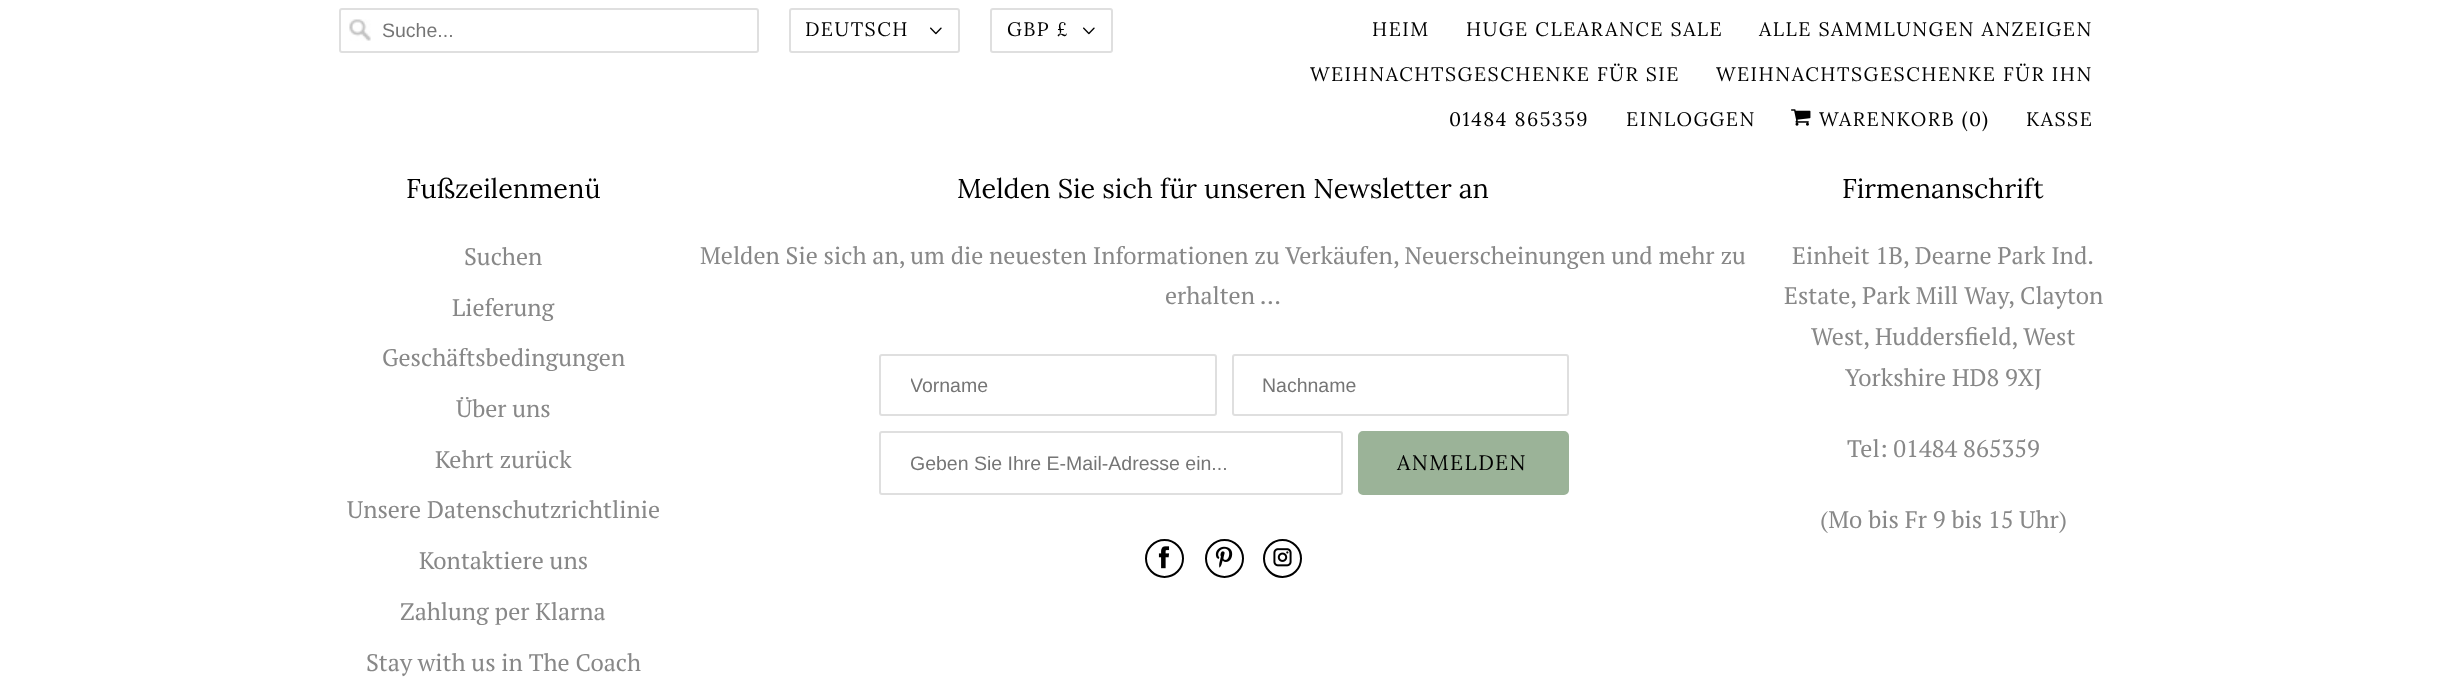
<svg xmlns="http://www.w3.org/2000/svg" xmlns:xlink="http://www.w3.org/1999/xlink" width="2446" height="687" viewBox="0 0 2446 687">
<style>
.cls-1{font:19.5px Liberation Sans;fill:#757575}
.cls-2{font:19.5px Lora;letter-spacing:1.5px;fill:#000000}
.cls-3{font:27px Lora;fill:#000000}
.cls-4{font:24px PT Serif;fill:#888888}
.cls-5{font:21px Lora;letter-spacing:1.5px;fill:#000000}
</style>
<defs>
<clipPath id="clip1"><rect x="911" y="374" width="274" height="22"/></clipPath>
<clipPath id="clip2"><rect x="911" y="452" width="400" height="22"/></clipPath>
</defs>
<rect width="100%" height="100%" fill="#ffffff"/>
<image xlink:href="image0.png" x="349" y="19" width="22" height="22"/>
<rect fill="none" stroke="#dfdfdf" stroke-width="2" x="340" y="9" width="418" height="43" rx="2"/>
<rect fill="none" stroke="#dfdfdf" stroke-width="2" x="790" y="9" width="169" height="43" rx="2"/>
<image xlink:href="image1.png" x="930" y="27" width="12" height="8"/>
<rect fill="none" stroke="#dfdfdf" stroke-width="2" x="991" y="9" width="121" height="43" rx="2"/>
<image xlink:href="image1.png" x="1083" y="27" width="12" height="8"/>
<image xlink:href="image2.png" x="1791" y="109" width="20" height="17"/>
<rect fill="none" stroke="#dfdfdf" stroke-width="2" x="880" y="355" width="336" height="60" rx="2"/>
<rect fill="none" stroke="#dfdfdf" stroke-width="2" x="1233" y="355" width="335" height="60" rx="2"/>
<rect fill="none" stroke="#dfdfdf" stroke-width="2" x="880" y="432" width="462" height="62" rx="2"/>
<rect fill="#9bb398" stroke="#9bb398" stroke-width="2" x="1359" y="432" width="209" height="62" rx="4"/>
<circle fill="none" stroke="#000000" stroke-width="2" cx="1164.5" cy="558.5" r="18.5"/>
<image xlink:href="image3.png" x="1158" y="546" width="12" height="23"/>
<circle fill="none" stroke="#000000" stroke-width="2" cx="1224.5" cy="558.5" r="18.5"/>
<image xlink:href="image4.png" x="1215" y="546" width="18" height="22"/>
<circle fill="none" stroke="#000000" stroke-width="2" cx="1282.5" cy="558.5" r="18.5"/>
<image xlink:href="image5.png" x="1273" y="548" width="19" height="19"/>
<text class="cls-1" x="382" y="37">Suche...</text>
<text class="cls-2" x="805" y="36">DEUTSCH</text>
<text class="cls-2" x="1007" y="36">GBP £</text>
<text class="cls-2" x="1372" y="36">HEIM</text>
<text class="cls-2" x="1466" y="36">HUGE CLEARANCE SALE</text>
<text class="cls-2" x="1759" y="36">ALLE SAMMLUNGEN ANZEIGEN</text>
<text class="cls-2" x="1310" y="81">WEIHNACHTSGESCHENKE FÜR SIE</text>
<text class="cls-2" x="1716" y="81">WEIHNACHTSGESCHENKE FÜR IHN</text>
<text class="cls-2" x="1449" y="126">01484 865359</text>
<text class="cls-2" x="1626" y="126">EINLOGGEN</text>
<text class="cls-2" x="1819" y="126">WARENKORB (</text>
<text class="cls-2" x="1969" y="126">0</text>
<text class="cls-2" x="1982" y="126">)</text>
<text class="cls-2" x="2026" y="126">KASSE</text>
<text class="cls-3" x="406" y="198">Fußzeilenmenü</text>
<text class="cls-4" x="464" y="265">Suchen</text>
<text class="cls-4" x="452" y="316">Lieferung</text>
<text class="cls-4" x="382" y="366">Geschäftsbedingungen</text>
<text class="cls-4" x="456" y="417">Über uns</text>
<text class="cls-4" x="435" y="468">Kehrt zurück</text>
<text class="cls-4" x="347" y="518">Unsere Datenschutzrichtlinie</text>
<text class="cls-4" x="419" y="569">Kontaktiere uns</text>
<text class="cls-4" x="400" y="620">Zahlung per Klarna</text>
<text class="cls-4" x="366" y="671">Stay with us in The Coach</text>
<text class="cls-3" x="957" y="198">Melden Sie sich für unseren Newsletter an</text>
<text class="cls-4" x="700" y="264">Melden Sie sich an, um die neuesten Informationen zu Verkäufen, Neuerscheinungen und mehr zu</text>
<text class="cls-4" x="1165" y="304">erhalten …</text>
<g clip-path="url(#clip1)">
<text class="cls-1" x="910" y="392">Vorname</text>
</g>
<text class="cls-1" x="1262" y="392">Nachname</text>
<g clip-path="url(#clip2)">
<text class="cls-1" x="910" y="470">Geben Sie Ihre E-Mail-Adresse ein...</text>
</g>
<text class="cls-5" x="1397" y="470">ANMELDEN</text>
<text class="cls-3" x="1842" y="198">Firmenanschrift</text>
<text class="cls-4" x="1792" y="264">Einheit 1B, Dearne Park Ind.</text>
<text class="cls-4" x="1784" y="304">Estate, Park Mill Way, Clayton</text>
<text class="cls-4" x="1811" y="345">West, Huddersfield, West</text>
<text class="cls-4" x="1845" y="386">Yorkshire HD8 9XJ</text>
<text class="cls-4" x="1847" y="457">Tel: 01484 865359</text>
<text class="cls-4" x="1820" y="528">(Mo bis Fr 9 bis 15 Uhr)</text>
</svg>
